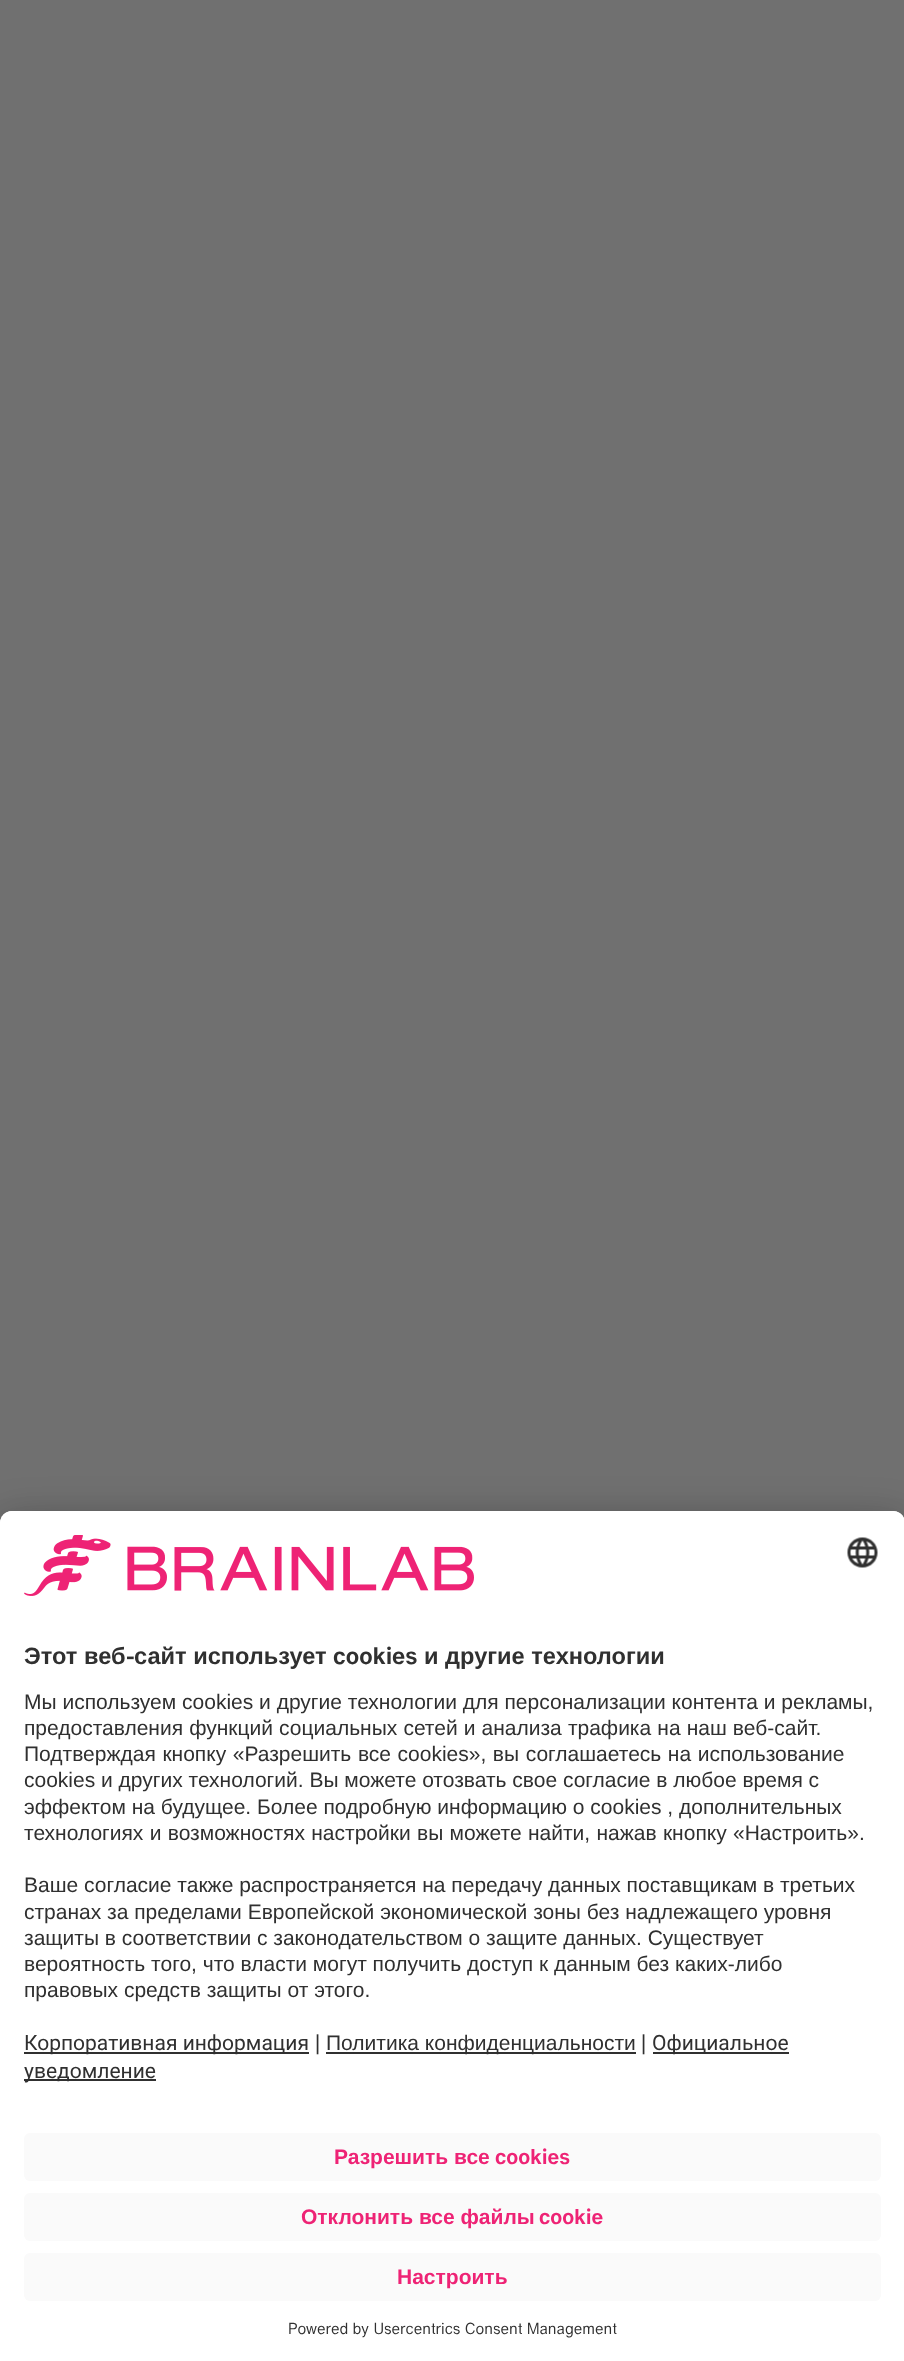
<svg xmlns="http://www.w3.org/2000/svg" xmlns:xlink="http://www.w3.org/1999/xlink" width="904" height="2361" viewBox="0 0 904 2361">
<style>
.cls-1{font:bold 23.6px Liberation Sans;fill:#303030}
.cls-2{font:bold 23.6px 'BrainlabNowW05';fill:#303030}
.cls-3{font:21px Liberation Sans;fill:#303030}
.cls-4{font:21px Roboto;fill:#303030}
.cls-5{font:21px 'BrainlabNowW05';fill:#303030}
.cls-6{font:bold 21px Liberation Sans;fill:#ee2375}
.cls-7{font:bold 21px 'BrainlabNowW05';fill:#ee2375}
.cls-8{font:15.75px 'BrainlabNowW05';fill:#303030}
</style>
<rect width="100%" height="100%" fill="#707070"/>
<rect fill="#000000" fill-opacity="0.3" filter="blur(21px)" x="0" y="1541" width="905" height="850" rx="12"/>
<rect fill="#000000" fill-opacity="0.22" filter="blur(19.5px)" x="0" y="1518" width="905" height="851" rx="12"/>
<path fill="#ffffff" d="M12 1511H893C899.5 1511 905 1516.5 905 1523V2361H0V1523C0 1516.5 5.5 1511 12 1511Z"/>
<path fill="#ffffff" d="M12 1511H893C899.5 1511 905 1516.5 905 1523V2115H0V1523C0 1516.5 5.5 1511 12 1511Z"/>
<image xlink:href="image0.png" x="24" y="1535" width="450" height="61"/>
<image xlink:href="image1.png" x="847" y="1537" width="31" height="31"/>
<rect fill="#303030" x="24" y="2052" width="285" height="2"/>
<rect fill="#303030" x="326" y="2052" width="310" height="2"/>
<rect fill="#303030" x="653" y="2052" width="136" height="2"/>
<rect fill="#303030" x="24" y="2079" width="132" height="2"/>
<rect fill="#fafafa" x="24" y="2133" width="857" height="48" rx="6"/>
<rect fill="#fafafa" x="24" y="2193" width="857" height="48" rx="6"/>
<rect fill="#fafafa" x="24" y="2253" width="857" height="48" rx="6"/>
<text class="cls-1" x="24" y="1664">Этот веб</text>
<text class="cls-2" x="126" y="1664">-</text>
<text class="cls-1" x="134" y="1664">сайт использует</text>
<text class="cls-2" x="333" y="1664">cookies</text>
<text class="cls-1" x="424" y="1664">и другие технологии</text>
<text class="cls-3"><tspan x="24" y="1709">Мы используем cookies и другие технологии для персонализации контента и рекламы,</tspan><tspan x="24" y="1735" word-spacing="0.25">предоставления функций социальных сетей и анализа трафика на наш веб-сайт.</tspan><tspan x="24" y="1761" word-spacing="0.75">Подтверждая кнопку «Разрешить все cookies», вы соглашаетесь на использование</tspan><tspan x="24" y="1787">cookies и других технологий. Вы можете отозвать свое согласие в любое время с</tspan><tspan x="24" y="1814">эффектом на будущее. Более подробную информацию о cookies , дополнительных</tspan><tspan x="24" y="1840" word-spacing="0.5">технологиях и возможностях настройки вы можете найти, нажав кнопку «Настроить».</tspan></text>
<text class="cls-3"><tspan x="24" y="1892">Ваше согласие также распространяется на передачу данных поставщикам в третьих</tspan><tspan x="24" y="1919">странах за пределами Европейской экономической зоны без надлежащего уровня</tspan><tspan x="24" y="1945">защиты в соответствии с законодательством о защите данных. Существует</tspan><tspan x="24" y="1971">вероятность того, что власти могут получить доступ к данным без каких-либо</tspan><tspan x="24" y="1997">правовых средств защиты от этого.</tspan></text>
<text class="cls-4" x="24" y="2050">Корпоративная информация</text>
<text class="cls-5" x="315" y="2050">|</text>
<text class="cls-3" x="326" y="2050">Политика конфиденциальности</text>
<text class="cls-5" x="641" y="2050">|</text>
<text class="cls-4" x="652" y="2050">Официальное</text>
<text class="cls-4" x="24" y="2078">уведомление</text>
<text class="cls-6" x="334" y="2164">Разрешить все</text>
<text class="cls-7" x="495" y="2164">cookies</text>
<text class="cls-6" x="301" y="2224">Отклонить все файлы</text>
<text class="cls-7" x="539" y="2224">cookie</text>
<text class="cls-6" x="397" y="2284">Настроить</text>
<text class="cls-8" x="288" y="2334">Powered by Usercentrics Consent Management</text>
</svg>
